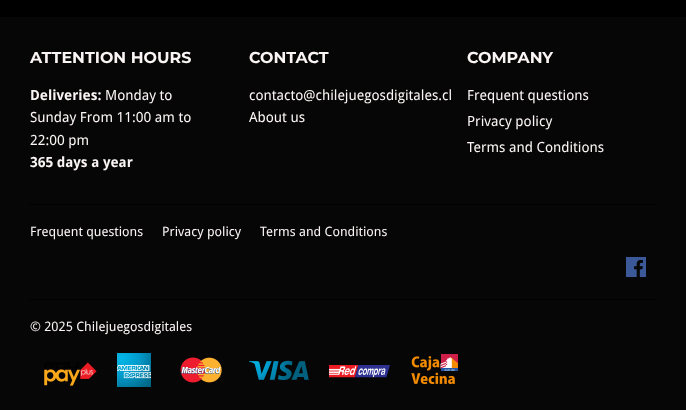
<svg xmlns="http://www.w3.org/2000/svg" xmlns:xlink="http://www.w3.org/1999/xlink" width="686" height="410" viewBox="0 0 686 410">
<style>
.cls-1{font:100 15.9px Montserrat;fill:#faf4f4}
.cls-2{font:bold 14px Droid Sans;fill:#faf4f4}
.cls-3{font:14px Droid Sans;fill:#faf4f4}
.cls-4{font:13px Droid Sans;fill:#faf4f4}
</style>
<rect width="100%" height="100%" fill="#000000"/>
<rect fill="#070606" x="0" y="17" width="686" height="393"/>
<rect fill="#000000" x="30" y="204" width="626" height="1"/>
<image xlink:href="image0.png" x="626" y="257" width="20" height="20"/>
<rect fill="#000000" x="30" y="299" width="626" height="1"/>
<image xlink:href="image1.png" x="44" y="362" width="53" height="24"/>
<image xlink:href="image2.png" x="117" y="353" width="34" height="34"/>
<image xlink:href="image3.png" x="180" y="357" width="42" height="26"/>
<image xlink:href="image4.png" x="249" y="360" width="60" height="21"/>
<image xlink:href="image5.png" x="329" y="365" width="61" height="13"/>
<image xlink:href="image6.png" x="411" y="354" width="47" height="30"/>
<text class="cls-1" x="30" y="63">ATTENTION HOURS</text>
<text class="cls-2" x="30" y="100">Deliveries:</text>
<text class="cls-3" x="105" y="100">Monday to</text>
<text class="cls-3"><tspan x="30" y="122">Sunday From 11:00 am to</tspan><tspan x="30" y="145">22:00 pm</tspan></text>
<text class="cls-2" x="30" y="167">365 days a year</text>
<text class="cls-1" x="249" y="63">CONTACT</text>
<text class="cls-3"><tspan x="249" y="100">contacto@chilejuegosdigitales.cl</tspan><tspan x="249" y="122">About us</tspan></text>
<text class="cls-1" x="467" y="63">COMPANY</text>
<text class="cls-3"><tspan x="467" y="100">Frequent questions</tspan><tspan x="467" y="126">Privacy policy</tspan><tspan x="467" y="152">Terms and Conditions</tspan></text>
<text class="cls-4" x="30" y="236">Frequent questions</text>
<text class="cls-4" x="162" y="236">Privacy policy</text>
<text class="cls-4" x="260" y="236">Terms and Conditions</text>
<text class="cls-4" x="30" y="331">© 2025 Chilejuegosdigitales</text>
</svg>
